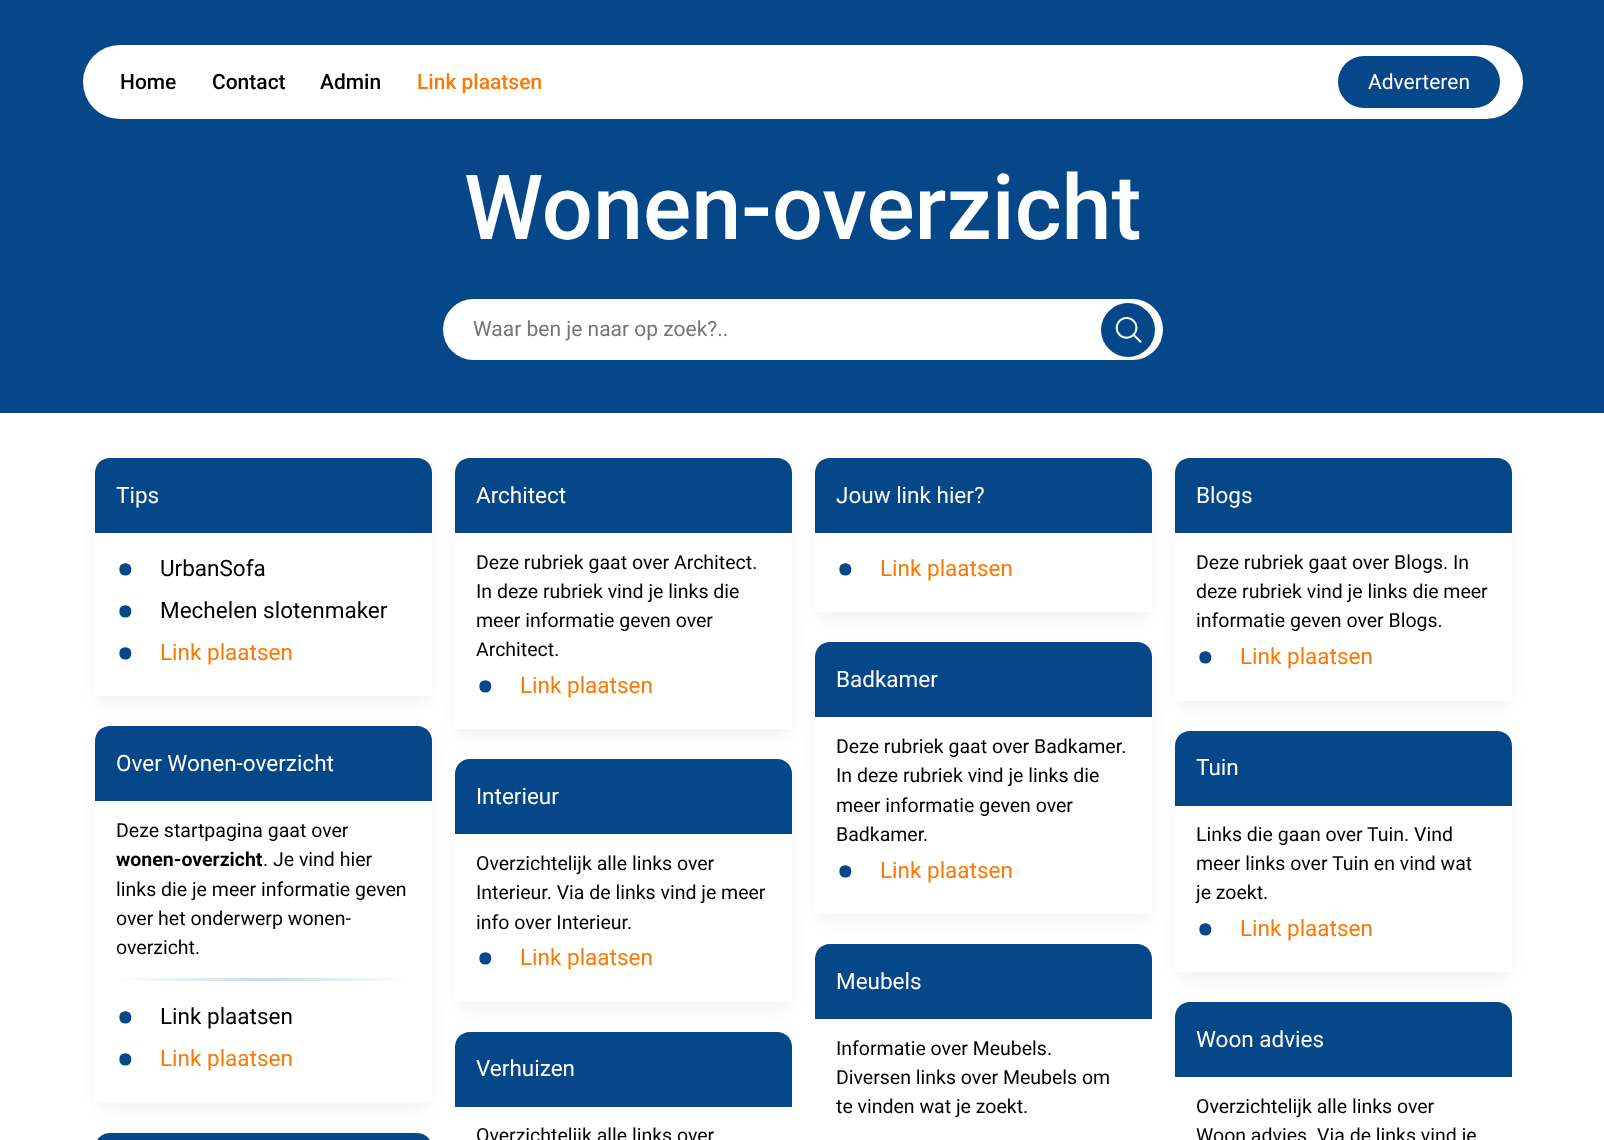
<svg xmlns="http://www.w3.org/2000/svg" xmlns:xlink="http://www.w3.org/1999/xlink" width="1604" height="1140" viewBox="0 0 1604 1140">
<style>
.cls-1{font:500 21px Roboto;fill:#000000}
.cls-2{font:500 21px Roboto;fill:#fb7902}
.cls-3{font:21px Roboto;fill:#ffffff}
.cls-4{font:500 90px Roboto;fill:#ffffff}
.cls-5{font:21px Roboto;fill:#757575}
.cls-6{font:22.5px Roboto;fill:#ffffff}
.cls-7{font:bold 51px Roboto;fill:#064789}
.cls-8{font:22.5px Roboto;fill:#000000}
.cls-9{font:22.5px Roboto;fill:#fb7902}
.cls-10{font:19.5px Roboto;fill:#000000}
.cls-11{font:bold 19.5px Roboto;fill:#000000}
</style>
<defs>
<clipPath id="clip1"><path d="M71 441H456V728H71ZM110 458H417C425.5 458 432 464.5 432 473V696H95V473C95 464.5 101.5 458 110 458Z" clip-rule="evenodd"/></clipPath>
<linearGradient id="g1" gradientUnits="userSpaceOnUse" x1="117" y1="980" x2="410" y2="980"><stop offset="0" stop-color="#ffffff"/><stop offset="0.5" stop-color="#c6dbee"/><stop offset="1" stop-color="#ffffff"/></linearGradient>
<clipPath id="clip2"><path d="M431 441H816V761H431ZM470 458H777C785.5 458 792 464.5 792 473V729H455V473C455 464.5 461.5 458 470 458Z" clip-rule="evenodd"/></clipPath>
<clipPath id="clip3"><path d="M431 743H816V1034H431ZM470 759H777C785.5 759 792 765.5 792 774V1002H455V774C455 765.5 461.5 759 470 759Z" clip-rule="evenodd"/></clipPath>
<clipPath id="clip4"><path d="M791 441H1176V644H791ZM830 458H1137C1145.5 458 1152 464.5 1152 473V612H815V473C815 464.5 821.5 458 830 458Z" clip-rule="evenodd"/></clipPath>
<clipPath id="clip5"><path d="M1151 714H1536V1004H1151ZM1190 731H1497C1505.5 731 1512 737.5 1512 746V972H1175V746C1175 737.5 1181.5 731 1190 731Z" clip-rule="evenodd"/></clipPath>
</defs>
<rect width="100%" height="100%" fill="#ffffff"/>
<rect fill="#064789" x="0" y="0" width="1604" height="413"/>
<rect fill="#ffffff" x="83" y="45" width="1440" height="74" rx="37"/>
<rect fill="#064789" x="1338" y="56" width="162" height="52" rx="26"/>
<rect fill="#ffffff" x="443" y="299" width="720" height="61" rx="30.5"/>
<circle fill="#064789" cx="1128" cy="330" r="27"/>
<image xlink:href="image0.png" x="1115" y="317" width="27" height="26"/>
<g clip-path="url(#clip1)">
<rect fill="#000000" fill-opacity="0.05" filter="blur(7.5px)" x="95" y="465" width="337" height="239" rx="15"/>
</g>
<path fill="#064789" d="M110 458H417C425.5 458 432 464.5 432 473V533H95V473C95 464.5 101.5 458 110 458Z"/>
<rect fill="#000000" fill-opacity="0.05" filter="blur(7.5px)" x="95" y="734" width="337" height="376" rx="15"/>
<path fill="#ffffff" d="M110 726H417C425.5 726 432 732.5 432 741V1103H95V741C95 732.5 101.5 726 110 726Z"/>
<path fill="#064789" d="M110 726H417C425.5 726 432 732.5 432 741V801H95V741C95 732.5 101.5 726 110 726Z"/>
<rect fill="url(#g1)" x="117" y="978" width="293" height="3"/>
<path fill="#064789" d="M110 1133H417C425.5 1133 432 1139.5 432 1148V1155H95V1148C95 1139.5 101.5 1133 110 1133Z"/>
<g clip-path="url(#clip2)">
<rect fill="#000000" fill-opacity="0.05" filter="blur(7.5px)" x="455" y="465" width="337" height="272" rx="15"/>
</g>
<path fill="#064789" d="M470 458H777C785.5 458 792 464.5 792 473V533H455V473C455 464.5 461.5 458 470 458Z"/>
<g clip-path="url(#clip3)">
<rect fill="#000000" fill-opacity="0.05" filter="blur(7.5px)" x="455" y="767" width="337" height="243" rx="15"/>
</g>
<path fill="#064789" d="M470 759H777C785.5 759 792 765.5 792 774V834H455V774C455 765.5 461.5 759 470 759Z"/>
<path fill="#064789" d="M470 1032H777C785.5 1032 792 1038.5 792 1047V1107H455V1047C455 1038.5 461.5 1032 470 1032Z"/>
<g clip-path="url(#clip4)">
<rect fill="#000000" fill-opacity="0.05" filter="blur(7.5px)" x="815" y="465" width="337" height="155" rx="15"/>
</g>
<path fill="#064789" d="M830 458H1137C1145.5 458 1152 464.5 1152 473V533H815V473C815 464.5 821.5 458 830 458Z"/>
<rect fill="#000000" fill-opacity="0.05" filter="blur(7.5px)" x="815" y="650" width="337" height="271" rx="15"/>
<path fill="#ffffff" d="M830 642H1137C1145.5 642 1152 648.5 1152 657V914H815V657C815 648.5 821.5 642 830 642Z"/>
<path fill="#064789" d="M830 642H1137C1145.5 642 1152 648.5 1152 657V717H815V657C815 648.5 821.5 642 830 642Z"/>
<path fill="#064789" d="M830 944H1137C1145.5 944 1152 950.5 1152 959V1019H815V959C815 950.5 821.5 944 830 944Z"/>
<rect fill="#000000" fill-opacity="0.05" filter="blur(7.5px)" x="1175" y="465" width="337" height="243" rx="15"/>
<path fill="#ffffff" d="M1190 458H1497C1505.5 458 1512 464.5 1512 473V701H1175V473C1175 464.5 1181.5 458 1190 458Z"/>
<path fill="#064789" d="M1190 458H1497C1505.5 458 1512 464.5 1512 473V533H1175V473C1175 464.5 1181.5 458 1190 458Z"/>
<g clip-path="url(#clip5)">
<rect fill="#000000" fill-opacity="0.05" filter="blur(7.5px)" x="1175" y="738" width="337" height="242" rx="15"/>
</g>
<path fill="#064789" d="M1190 731H1497C1505.5 731 1512 737.5 1512 746V806H1175V746C1175 737.5 1181.5 731 1190 731Z"/>
<path fill="#064789" d="M1190 1002H1497C1505.5 1002 1512 1008.5 1512 1017V1077H1175V1017C1175 1008.5 1181.5 1002 1190 1002Z"/>
<text class="cls-1" x="120" y="89">Home</text>
<text class="cls-1" x="212" y="89">Contact</text>
<text class="cls-1" x="320" y="89">Admin</text>
<text class="cls-2" x="417" y="89">Link plaatsen</text>
<text class="cls-3" x="1368" y="89">Adverteren</text>
<text class="cls-4" x="464" y="239">Wonen-overzicht</text>
<text class="cls-5" x="473" y="336">Waar ben je naar op zoek?..</text>
<text class="cls-6" x="116" y="503">Tips</text>
<text class="cls-7" x="116" y="588">•</text>
<text class="cls-8" x="160" y="576">UrbanSofa</text>
<text class="cls-7" x="116" y="630">•</text>
<text class="cls-8" x="160" y="618">Mechelen slotenmaker</text>
<text class="cls-7" x="116" y="672">•</text>
<text class="cls-9" x="160" y="660">Link plaatsen</text>
<text class="cls-6" x="116" y="771">Over Wonen-overzicht</text>
<text class="cls-10" x="116" y="837">Deze startpagina gaat over</text>
<text class="cls-11" x="116" y="866">wonen-overzicht</text>
<text class="cls-10" x="263" y="866">. Je vind hier</text>
<text class="cls-10"><tspan x="116" y="896">links die je meer informatie geven</tspan><tspan x="116" y="925">over het onderwerp wonen-</tspan><tspan x="116" y="954">overzicht.</tspan></text>
<text class="cls-7" x="116" y="1036">•</text>
<text class="cls-8" x="160" y="1024">Link plaatsen</text>
<text class="cls-7" x="116" y="1078">•</text>
<text class="cls-9" x="160" y="1066">Link plaatsen</text>
<text class="cls-6" x="476" y="503">Architect</text>
<text class="cls-10"><tspan x="476" y="569">Deze rubriek gaat over Architect.</tspan><tspan x="476" y="598">In deze rubriek vind je links die</tspan><tspan x="476" y="627">meer informatie geven over</tspan><tspan x="476" y="656">Architect.</tspan></text>
<text class="cls-7" x="476" y="705">•</text>
<text class="cls-9" x="520" y="693">Link plaatsen</text>
<text class="cls-6" x="476" y="804">Interieur</text>
<text class="cls-10"><tspan x="476" y="870">Overzichtelijk alle links over</tspan><tspan x="476" y="899">Interieur. Via de links vind je meer</tspan><tspan x="476" y="929">info over Interieur.</tspan></text>
<text class="cls-7" x="476" y="977">•</text>
<text class="cls-9" x="520" y="965">Link plaatsen</text>
<text class="cls-6" x="476" y="1076">Verhuizen</text>
<text class="cls-10" x="476" y="1142">Overzichtelijk alle links over</text>
<text class="cls-6" x="836" y="503">Jouw link hier?</text>
<text class="cls-7" x="836" y="588">•</text>
<text class="cls-9" x="880" y="576">Link plaatsen</text>
<text class="cls-6" x="836" y="687">Badkamer</text>
<text class="cls-10"><tspan x="836" y="753">Deze rubriek gaat over Badkamer.</tspan><tspan x="836" y="782">In deze rubriek vind je links die</tspan><tspan x="836" y="812">meer informatie geven over</tspan><tspan x="836" y="841">Badkamer.</tspan></text>
<text class="cls-7" x="836" y="890">•</text>
<text class="cls-9" x="880" y="878">Link plaatsen</text>
<text class="cls-6" x="836" y="989">Meubels</text>
<text class="cls-10"><tspan x="836" y="1055">Informatie over Meubels.</tspan><tspan x="836" y="1084">Diversen links over Meubels om</tspan><tspan x="836" y="1113">te vinden wat je zoekt.</tspan></text>
<text class="cls-6" x="1196" y="503">Blogs</text>
<text class="cls-10"><tspan x="1196" y="569">Deze rubriek gaat over Blogs. In</tspan><tspan x="1196" y="598">deze rubriek vind je links die meer</tspan><tspan x="1196" y="627">informatie geven over Blogs.</tspan></text>
<text class="cls-7" x="1196" y="676">•</text>
<text class="cls-9" x="1240" y="664">Link plaatsen</text>
<text class="cls-6" x="1196" y="775">Tuin</text>
<text class="cls-10" x="1196" y="841">Links die gaan over</text>
<text class="cls-10" x="1367" y="841">Tuin. Vind</text>
<text class="cls-10" x="1196" y="870">meer links over</text>
<text class="cls-10" x="1332" y="870">Tuin en vind wat</text>
<text class="cls-10" x="1196" y="899">je zoekt.</text>
<text class="cls-7" x="1196" y="948">•</text>
<text class="cls-9" x="1240" y="936">Link plaatsen</text>
<text class="cls-6" x="1196" y="1047">Woon advies</text>
<text class="cls-10"><tspan x="1196" y="1113">Overzichtelijk alle links over</tspan><tspan x="1196" y="1142">Woon advies. Via de links vind je</tspan></text>
</svg>
